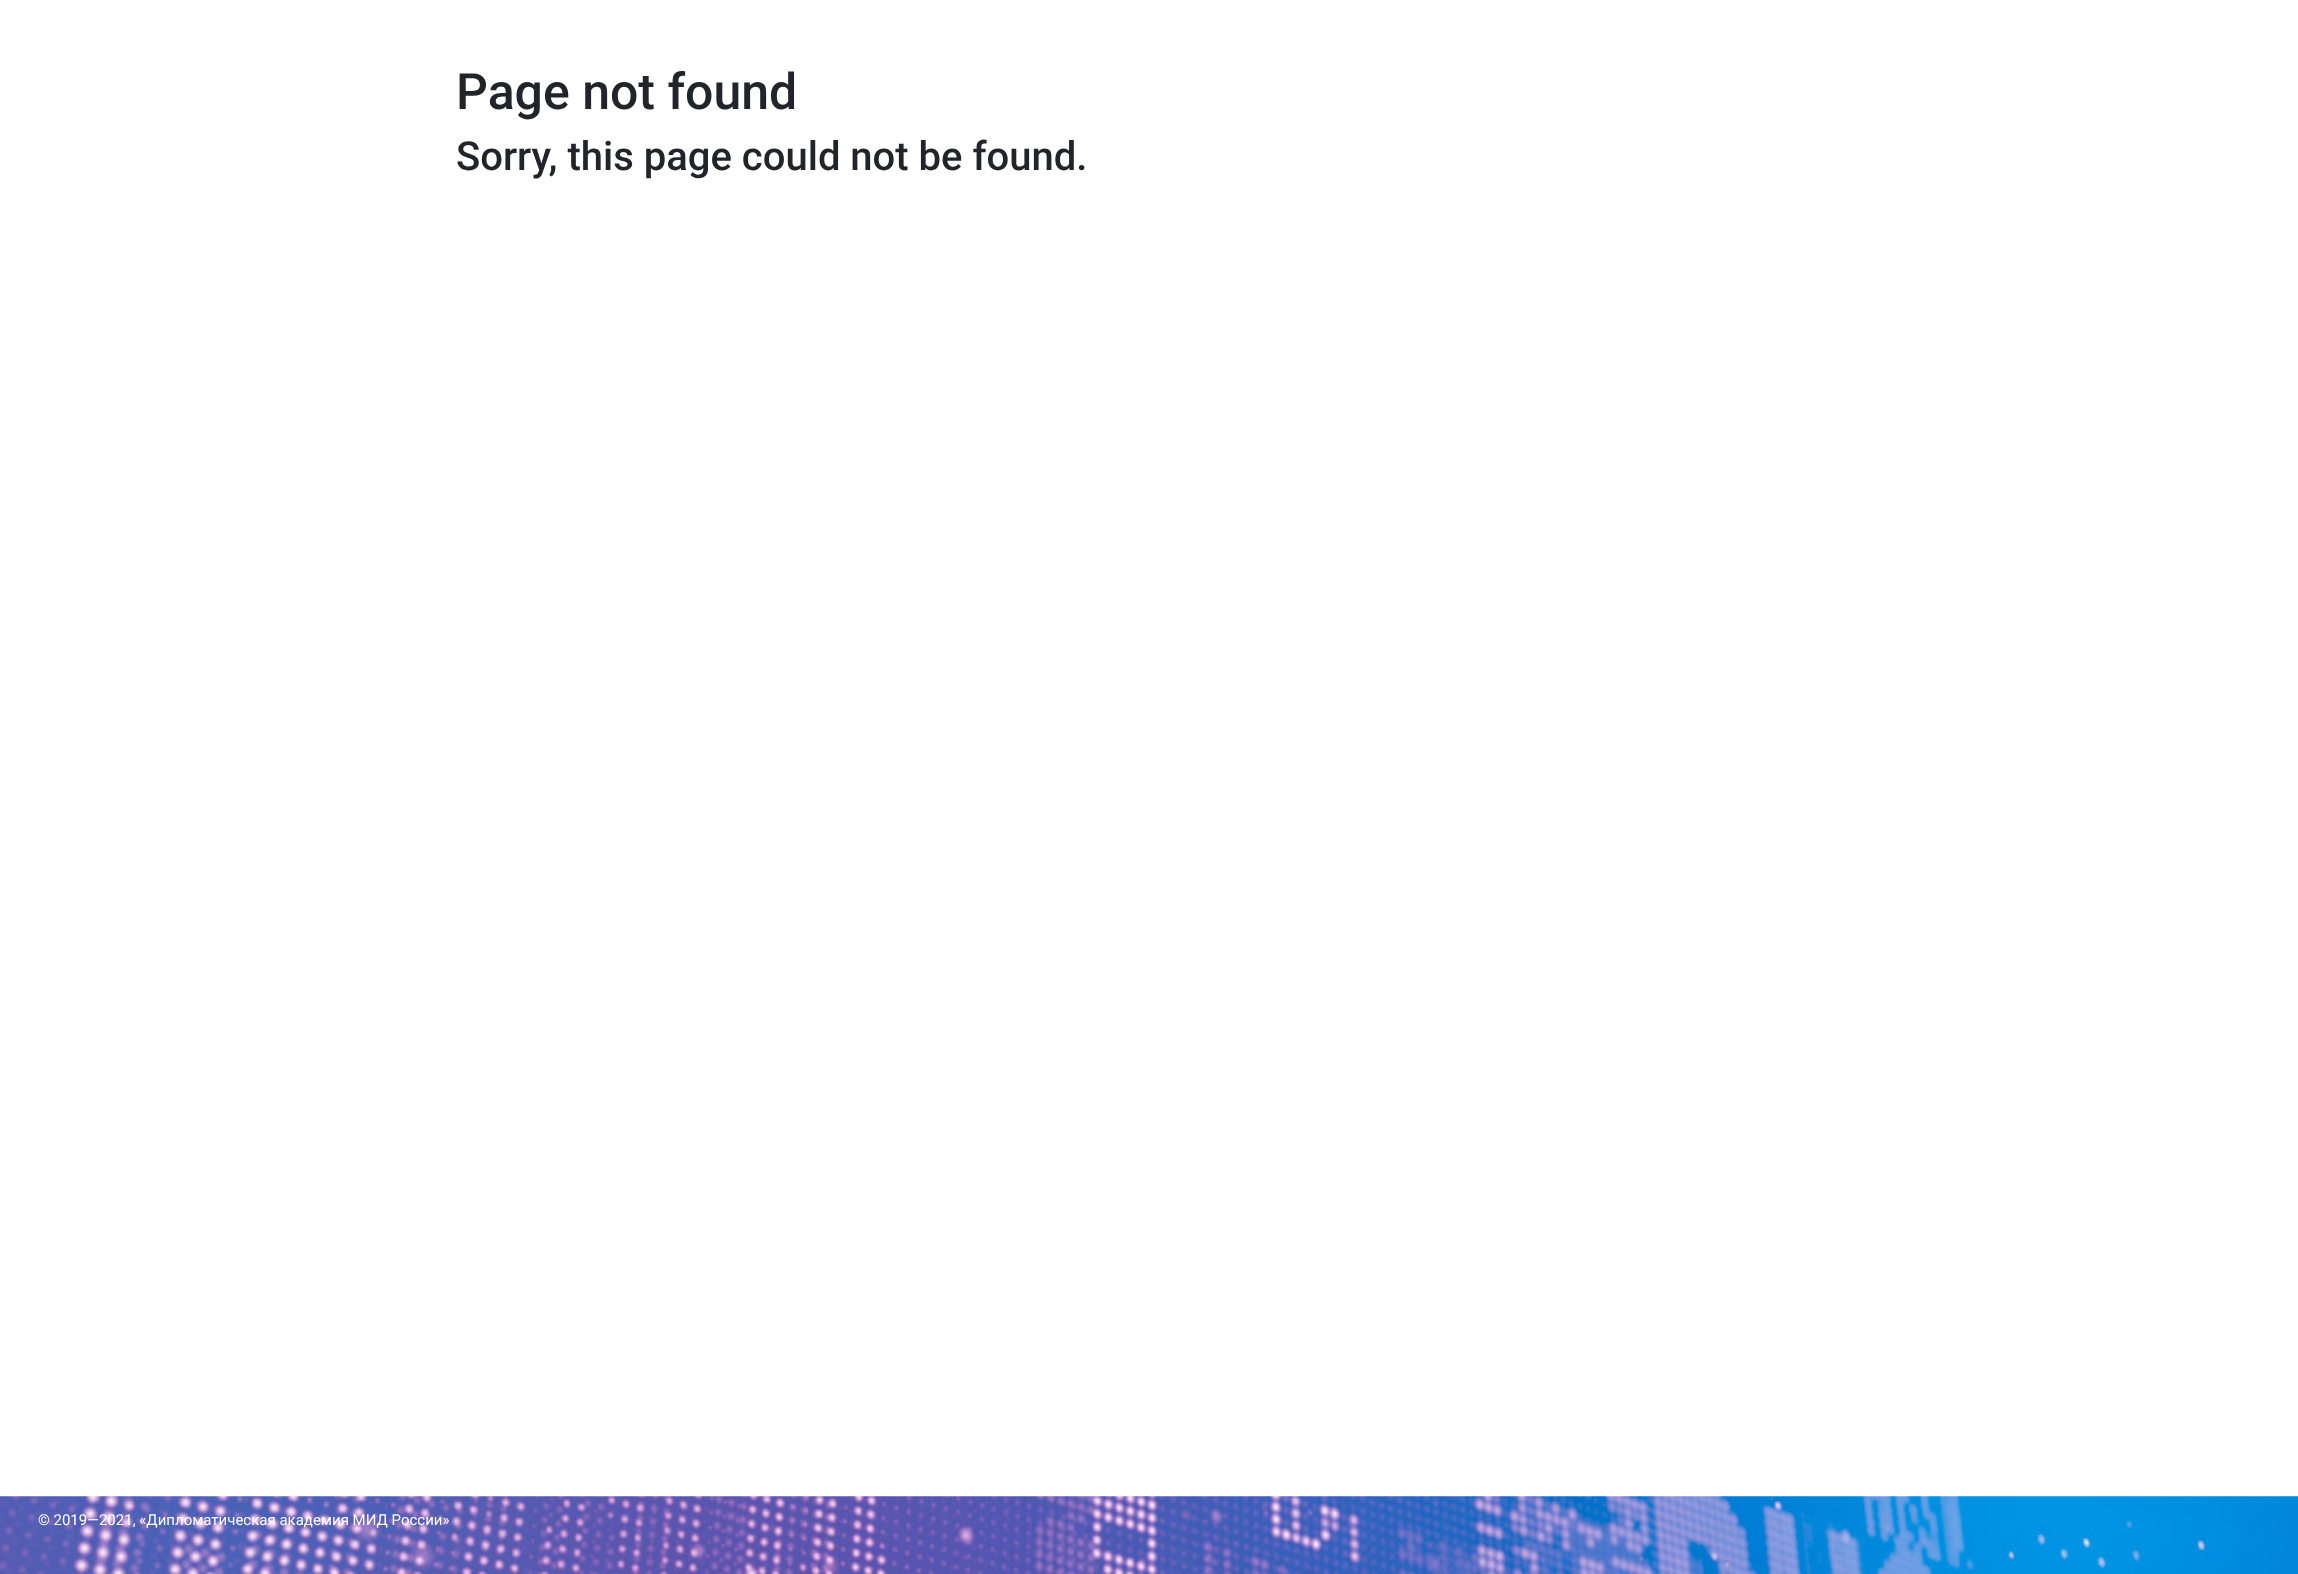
<svg xmlns="http://www.w3.org/2000/svg" xmlns:xlink="http://www.w3.org/1999/xlink" width="2298" height="1574" viewBox="0 0 2298 1574">
<style>
.cls-1{font:500 50px Roboto;fill:#212529}
.cls-2{font:500 40px Roboto;fill:#212529}
.cls-3{font:15px Roboto;fill:#ffffff}
</style>
<rect width="100%" height="100%" fill="#ffffff"/>
<image xlink:href="image0.png" x="0" y="1496" width="2298" height="78"/>
<text class="cls-1" x="456" y="109">Page not found</text>
<text class="cls-2" x="456" y="170">Sorry, this page could not be found.</text>
<text class="cls-3" x="38" y="1525">© 2019—2021, «Дипломатическая академия МИД России»</text>
</svg>
